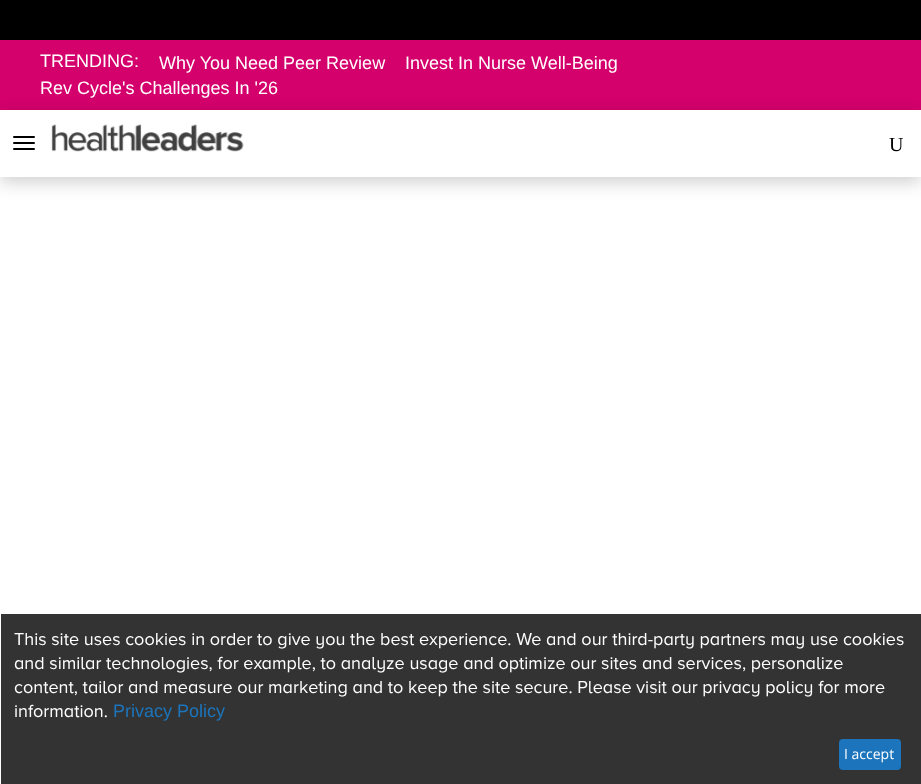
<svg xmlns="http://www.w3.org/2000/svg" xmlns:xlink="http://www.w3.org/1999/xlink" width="921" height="784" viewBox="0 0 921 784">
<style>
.cls-1{font:18px Liberation Sans;fill:#ffffff}
.cls-2{font:20px Liberation Serif;fill:#000000}
.cls-3{font:18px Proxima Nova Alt;fill:#ffffff}
.cls-4{font:18px Liberation Sans;fill:#1c75bc}
.cls-5{font:14px Open Sans;fill:#ffffff}
</style>
<defs>
<clipPath id="clip1"><path d="M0 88H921V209H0ZM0 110H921V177H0Z" clip-rule="evenodd"/></clipPath>
</defs>
<rect width="100%" height="100%" fill="#ffffff"/>
<rect fill="#000000" x="0" y="0" width="921" height="40"/>
<rect fill="#d4006c" x="0" y="40" width="921" height="70"/>
<g clip-path="url(#clip1)">
<rect fill="#000000" fill-opacity="0.19" filter="blur(8.5px)" x="0" y="115" width="921" height="67"/>
</g>
<rect fill="#000000" x="13" y="136" width="22" height="2" rx="1"/>
<rect fill="#000000" x="13" y="142" width="22" height="2" rx="1"/>
<rect fill="#000000" x="13" y="148" width="22" height="2" rx="1"/>
<image xlink:href="image0.png" x="51" y="124" width="193" height="28"/>
<rect fill="#333333" x="1" y="614" width="920" height="170"/>
<rect fill="#1c75bc" x="839" y="739" width="62" height="31" rx="4"/>
<text class="cls-1" x="40" y="67">TRENDING:</text>
<text class="cls-1" x="159" y="69">Why You Need Peer Review</text>
<text class="cls-1" x="405" y="69">Invest In Nurse Well-Being</text>
<text class="cls-1" x="40" y="94">Rev Cycle's Challenges In '26</text>
<text class="cls-2" x="889" y="151">U</text>
<text class="cls-3"><tspan x="14" y="645">This site uses cookies in order to give you the best experience. We and our third-party partners may use cookies</tspan><tspan x="14" y="669">and similar technologies, for example, to analyze usage and optimize our sites and services, personalize</tspan><tspan x="14" y="693">content, tailor and measure our marketing and to keep the site secure. Please visit our privacy policy for more</tspan><tspan x="14" y="717">information.</tspan></text>
<text class="cls-4" x="113" y="717">Privacy Policy</text>
<text class="cls-5" x="844" y="759">I accept</text>
</svg>
